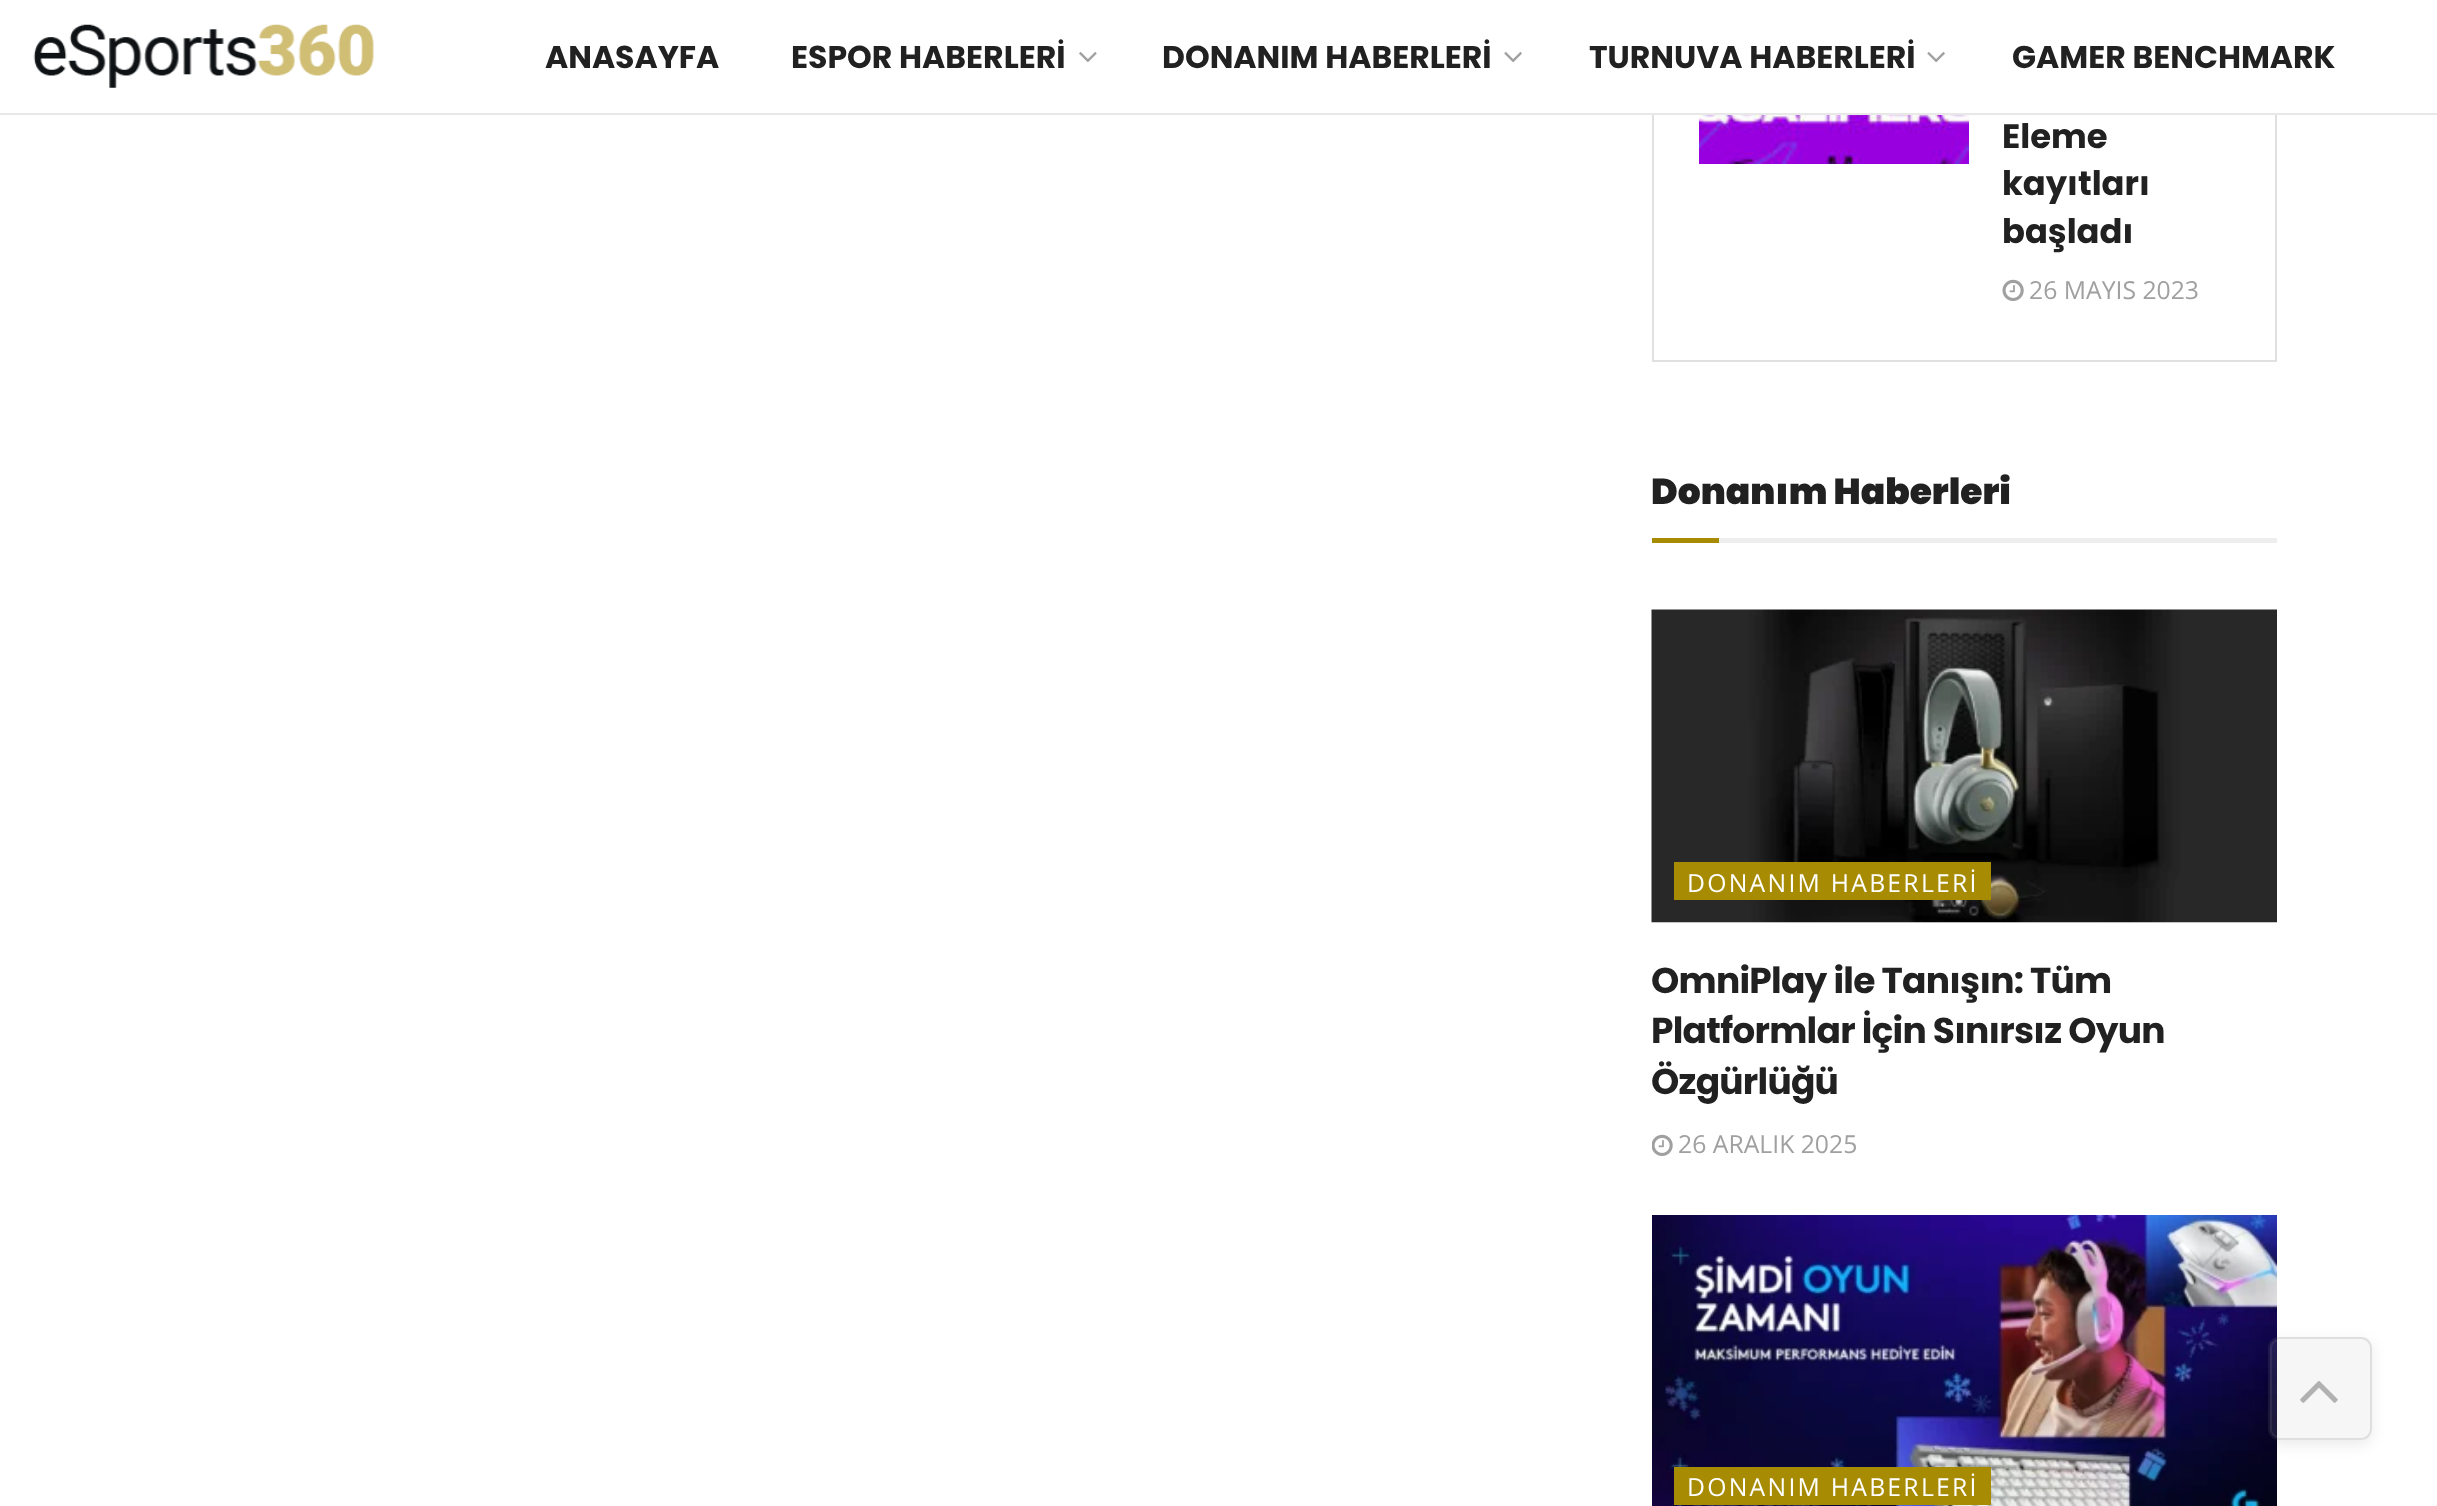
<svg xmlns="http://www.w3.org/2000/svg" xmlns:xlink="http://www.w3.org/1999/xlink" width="2437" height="1506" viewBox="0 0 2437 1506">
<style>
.cls-1{font:bold 31.5px Poppins;fill:#212121}
.cls-2{font:bold 33.75px Poppins;fill:#212121}
.cls-3{font:24.75px Open Sans;fill:#a0a0a0}
.cls-4{font:900 36px Poppins;fill:#212121}
.cls-5{font:24.75px Open Sans;letter-spacing:2.25px;fill:#ffffff}
.cls-6{font:bold 36px Poppins;letter-spacing:-0.75px;fill:#212121}
</style>
<defs>
<clipPath id="clip1"><path d="M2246 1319H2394V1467H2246ZM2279 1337H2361C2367 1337 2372 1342 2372 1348V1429C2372 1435 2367 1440 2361 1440H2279C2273 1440 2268 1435 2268 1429V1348C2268 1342 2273 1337 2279 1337Z" clip-rule="evenodd"/></clipPath>
</defs>
<rect width="100%" height="100%" fill="#ffffff"/>
<rect fill="none" stroke="#e0e0e0" stroke-width="2" x="1653" y="-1" width="623" height="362"/>
<rect fill="#ffffff" x="1652" y="0" width="625" height="113"/>
<rect fill="#e8e8e8" x="0" y="113" width="2437" height="2"/>
<image xlink:href="image0.png" x="33" y="24" width="341" height="64"/>
<image xlink:href="image1.png" x="1079" y="52" width="18" height="11"/>
<image xlink:href="image2.png" x="1504" y="52" width="18" height="11"/>
<image xlink:href="image2.png" x="1927" y="52" width="18" height="11"/>
<image xlink:href="image3.png" x="1699" y="115" width="270" height="49"/>
<image xlink:href="image4.png" x="2002" y="279" width="22" height="22"/>
<rect fill="#eeeeee" x="1719" y="538" width="558" height="5"/>
<rect fill="#a68b03" x="1652" y="538" width="67" height="5"/>
<rect fill="#f7f7f7" x="1652" y="922" width="625" height="1"/>
<image xlink:href="image5.png" x="1651" y="609" width="626" height="314"/>
<rect fill="#a68b03" x="1674" y="862" width="317" height="38"/>
<image xlink:href="image6.png" x="1652" y="1134" width="21" height="22"/>
<image xlink:href="image7.png" x="1652" y="1215" width="625" height="291"/>
<rect fill="#a68b03" x="1674" y="1467" width="317" height="38"/>
<g clip-path="url(#clip1)">
<rect fill="#000000" fill-opacity="0.08" filter="blur(7px)" x="2268" y="1341" width="104" height="104" rx="11"/>
</g>
<rect fill="#b4b4b4" fill-opacity="0.12" x="2268" y="1337" width="104" height="103" rx="11"/>
<rect fill="none" stroke="#ffffff" stroke-opacity="0.08" stroke-width="2" x="2271" y="1340" width="97" height="97" rx="8"/>
<rect fill="none" stroke="#000000" stroke-opacity="0.09" stroke-width="2" x="2269" y="1338" width="102" height="101" rx="10"/>
<image xlink:href="image8.png" x="2300" y="1381" width="38" height="22"/>
<text class="cls-1" x="545" y="68">ANASAYFA</text>
<text class="cls-1" x="791" y="68">ESPOR HABERLERİ</text>
<text class="cls-1" x="1162" y="68">DONANIM HABERLERİ</text>
<text class="cls-1" x="1589" y="68">TURNUVA HABERLERİ</text>
<text class="cls-1" x="2012" y="68">GAMER BENCHMARK</text>
<text class="cls-2"><tspan x="2002" y="148">Eleme</tspan><tspan x="2002" y="195">kayıtları</tspan><tspan x="2002" y="243">başladı</tspan></text>
<text class="cls-3" x="2029" y="299">26 MAYIS 2023</text>
<text class="cls-4" x="1651" y="504">Donanım Haberleri</text>
<text class="cls-5" x="1687" y="892">DONANIM HABERLERİ</text>
<text class="cls-6"><tspan x="1651" y="993">OmniPlay ile Tanışın: Tüm</tspan><tspan x="1651" y="1043">Platformlar İçin Sınırsız Oyun</tspan><tspan x="1651" y="1094">Özgürlüğü</tspan></text>
<text class="cls-3" x="1678" y="1153">26 ARALIK 2025</text>
<text class="cls-5" x="1687" y="1496">DONANIM HABERLERİ</text>
</svg>
